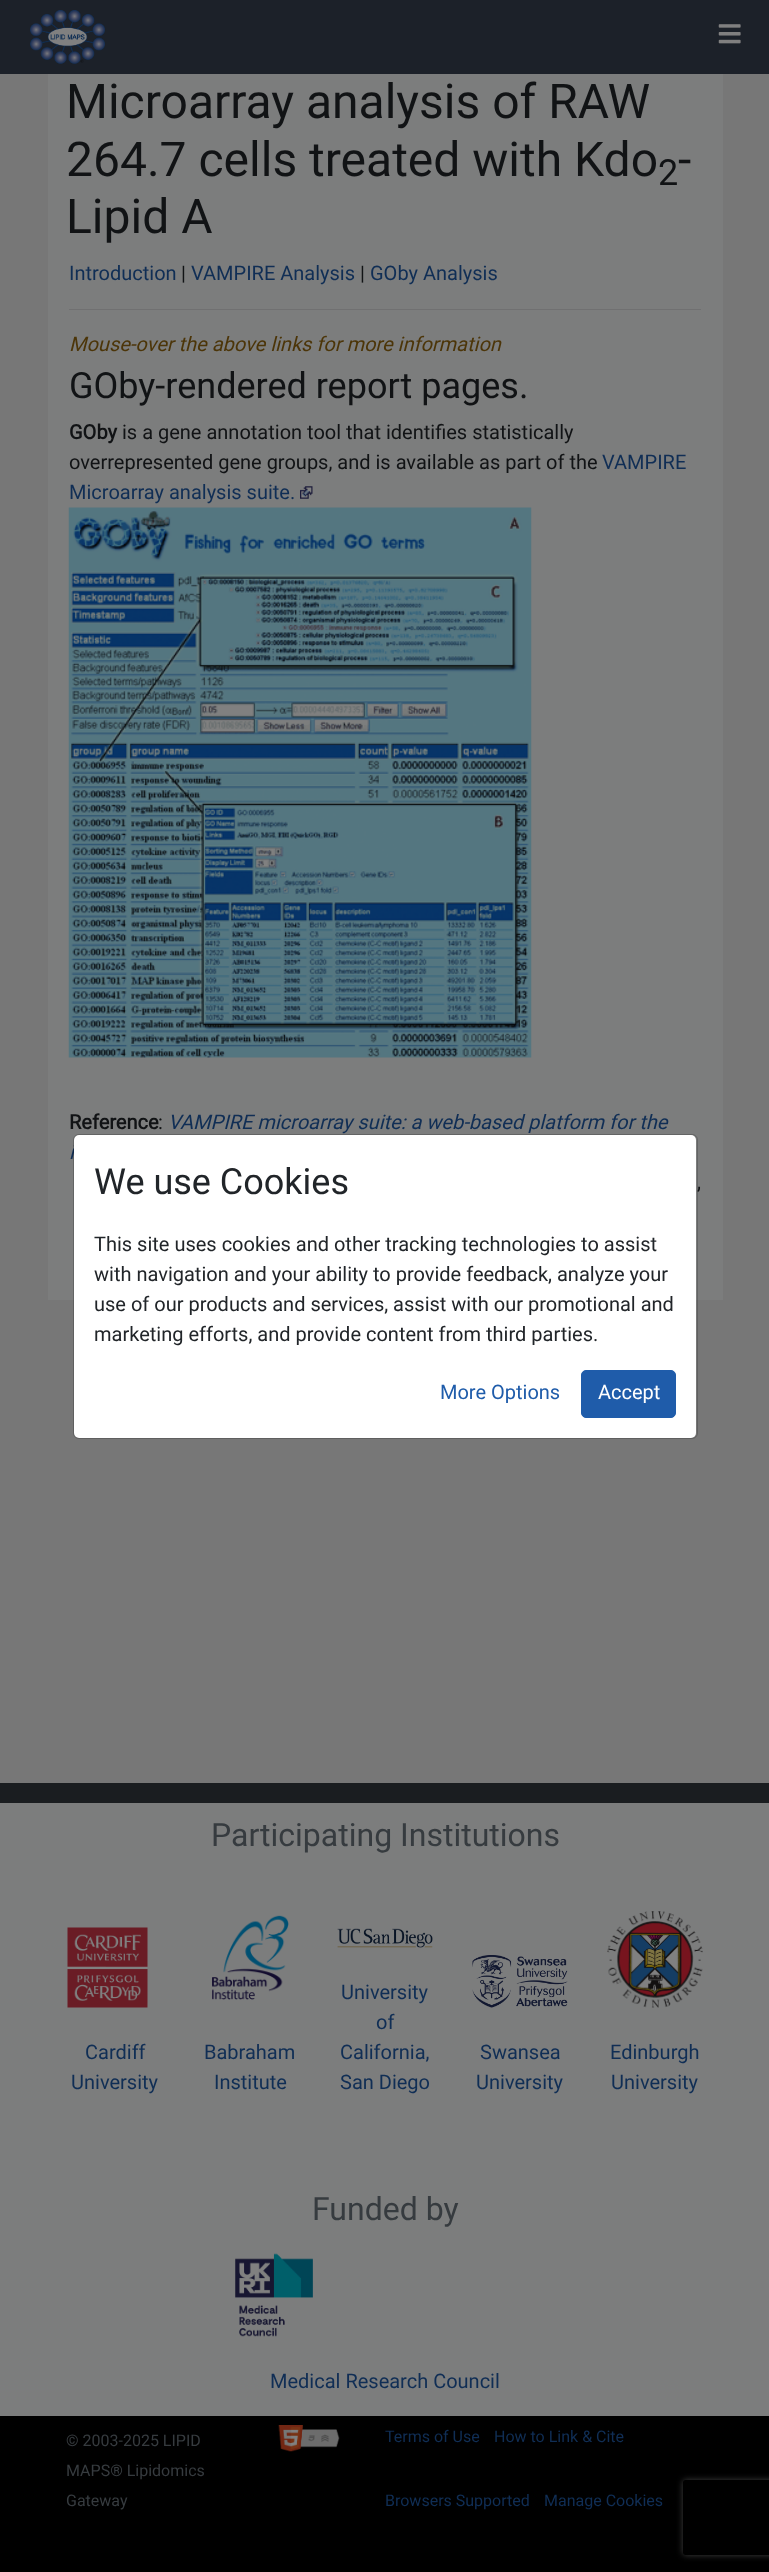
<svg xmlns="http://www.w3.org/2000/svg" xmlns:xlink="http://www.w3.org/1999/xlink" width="769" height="2572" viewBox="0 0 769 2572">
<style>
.cls-1{font:48px Roboto;fill:#111315}
.cls-2{font:36px Roboto;fill:#111315}
.cls-3{font:20px Roboto;fill:#102e55}
.cls-4{font:20px Roboto;fill:#111315}
.cls-5{font:italic 20px Roboto;fill:#4c3508}
.cls-6{font:bold 20px Roboto;fill:#111315}
.cls-7{font:italic 20px Roboto;fill:#102e55}
.cls-8{font:36px Roboto;fill:#212529}
.cls-9{font:20px Roboto;fill:#212529}
.cls-10{font:20px Roboto;fill:#1f5caa}
.cls-11{font:20px Roboto;fill:#ffffff}
.cls-12{font:32px Roboto;fill:#363b3f}
.cls-13{font:16px Roboto;fill:#363b3f}
.cls-14{font:16px Roboto;fill:#102e55}
</style>
<defs>
<clipPath id="clip1"><path d="M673 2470H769V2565H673ZM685.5 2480H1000.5C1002 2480 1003 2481 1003 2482.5V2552.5C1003 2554 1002 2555 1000.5 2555H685.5C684 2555 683 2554 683 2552.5V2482.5C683 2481 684 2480 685.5 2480Z" clip-rule="evenodd"/></clipPath>
</defs>
<rect width="100%" height="100%" fill="#777777"/>
<rect fill="#1c2129" x="0" y="0" width="769" height="74"/>
<image xlink:href="image0.png" x="30" y="10" width="75" height="54"/>
<image xlink:href="image1.png" x="718" y="24" width="23" height="20"/>
<rect fill="#7c7d7d" x="48" y="74" width="675" height="1226"/>
<rect fill="#707071" x="69" y="309" width="632" height="1"/>
<image xlink:href="image2.png" x="300" y="486" width="13" height="13"/>
<image xlink:href="image3.png" x="68" y="507" width="464" height="551"/>
<rect fill="#1a1d20" x="0" y="1783" width="769" height="20"/>
<rect fill="#7c7d7d" x="0" y="1803" width="769" height="613"/>
<image xlink:href="image4.png" x="67" y="1927" width="81" height="81"/>
<image xlink:href="image5.png" x="212" y="1915" width="77" height="85"/>
<image xlink:href="image6.png" x="337" y="1928" width="96" height="20"/>
<image xlink:href="image7.png" x="472" y="1955" width="96" height="53"/>
<image xlink:href="image8.png" x="607" y="1911" width="96" height="97"/>
<image xlink:href="image9.png" x="235" y="2253" width="78" height="84"/>
<rect fill="#000000" x="0" y="2416" width="769" height="156"/>
<image xlink:href="image10.png" x="278" y="2425" width="62" height="27"/>
<g clip-path="url(#clip1)">
<rect fill="#404040" filter="blur(3px)" x="683" y="2480" width="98" height="75" rx="2.5"/>
</g>
<text class="cls-1"><tspan x="66" y="118">Microarray analysis of RAW</tspan><tspan x="66" y="176">264.7 cells treated with Kdo</tspan></text>
<text class="cls-2" x="658" y="185">2</text>
<text class="cls-1" x="678" y="176">-</text>
<text class="cls-1" x="66" y="233">Lipid A</text>
<text class="cls-3" x="69" y="280">Introduction</text>
<text class="cls-4" x="181" y="280">|</text>
<text class="cls-3" x="191" y="280">VAMPIRE Analysis</text>
<text class="cls-4" x="360" y="280">|</text>
<text class="cls-3" x="370" y="280">GOby Analysis</text>
<text class="cls-5" x="69" y="351">Mouse-over the above links for more information</text>
<text class="cls-2" x="69" y="398">GOby-rendered report pages.</text>
<text class="cls-6" x="69" y="439">GOby</text>
<text class="cls-4" x="122" y="439">is a gene annotation tool that identifies statistically</text>
<text class="cls-4" x="69" y="469">overrepresented gene groups, and is available as part of the</text>
<text class="cls-3" x="602" y="469">VAMPIRE</text>
<text class="cls-3" x="69" y="499">Microarray analysis suite.</text>
<text class="cls-6" x="69" y="1129">Reference</text>
<text class="cls-4" x="158" y="1129">:</text>
<text class="cls-7" x="168" y="1129">VAMPIRE microarray suite: a web-based platform for the</text>
<text class="cls-7" x="69" y="1159">i</text>
<text class="cls-4" x="697" y="1189">,</text>
<rect fill="#ffffff" x="74" y="1135" width="622" height="303" rx="5"/>
<rect fill="none" stroke="#000000" stroke-opacity="0.2" x="73.5" y="1134.5" width="624" height="304" rx="5.5"/>
<text class="cls-8" x="94" y="1194">We use Cookies</text>
<text class="cls-9"><tspan x="94" y="1251">This site uses cookies and other tracking technologies to assist</tspan><tspan x="94" y="1281">with navigation and your ability to provide feedback, analyze your</tspan><tspan x="94" y="1311">use of our products and services, assist with our promotional and</tspan><tspan x="94" y="1341">marketing efforts, and provide content from third parties.</tspan></text>
<text class="cls-10" x="440" y="1399">More Options</text>
<rect fill="#1f5caa" stroke="#1f5caa" x="581.5" y="1370.5" width="94" height="47" rx="4.5"/>
<text class="cls-11" x="598" y="1399">Accept</text>
<text class="cls-12" x="211" y="1846">Participating Institutions</text>
<text class="cls-3" x="85" y="2059">Cardiff</text>
<text class="cls-3" x="71" y="2089">University</text>
<text class="cls-3" x="204" y="2059">Babraham</text>
<text class="cls-3" x="214" y="2089">Institute</text>
<text class="cls-3" x="341" y="1999">University</text>
<text class="cls-3" x="376" y="2029">of</text>
<text class="cls-3"><tspan x="340" y="2059">California,</tspan><tspan x="340" y="2089">San Diego</tspan></text>
<text class="cls-3" x="480" y="2059">Swansea</text>
<text class="cls-3" x="476" y="2089">University</text>
<text class="cls-3" x="610" y="2059">Edinburgh</text>
<text class="cls-3" x="611" y="2089">University</text>
<text class="cls-12" x="312" y="2220">Funded by</text>
<text class="cls-3" x="270" y="2388">Medical Research Council</text>
<text class="cls-13"><tspan x="66" y="2446">© 2003-2025 LIPID</tspan><tspan x="66" y="2476">MAPS® Lipidomics</tspan><tspan x="66" y="2506">Gateway</tspan></text>
<text class="cls-14" x="385" y="2442">Terms of Use</text>
<text class="cls-14" x="494" y="2442">How to Link &amp; Cite</text>
<text class="cls-14" x="385" y="2506">Browsers Supported</text>
<text class="cls-14" x="544" y="2506">Manage Cookies</text>
</svg>
